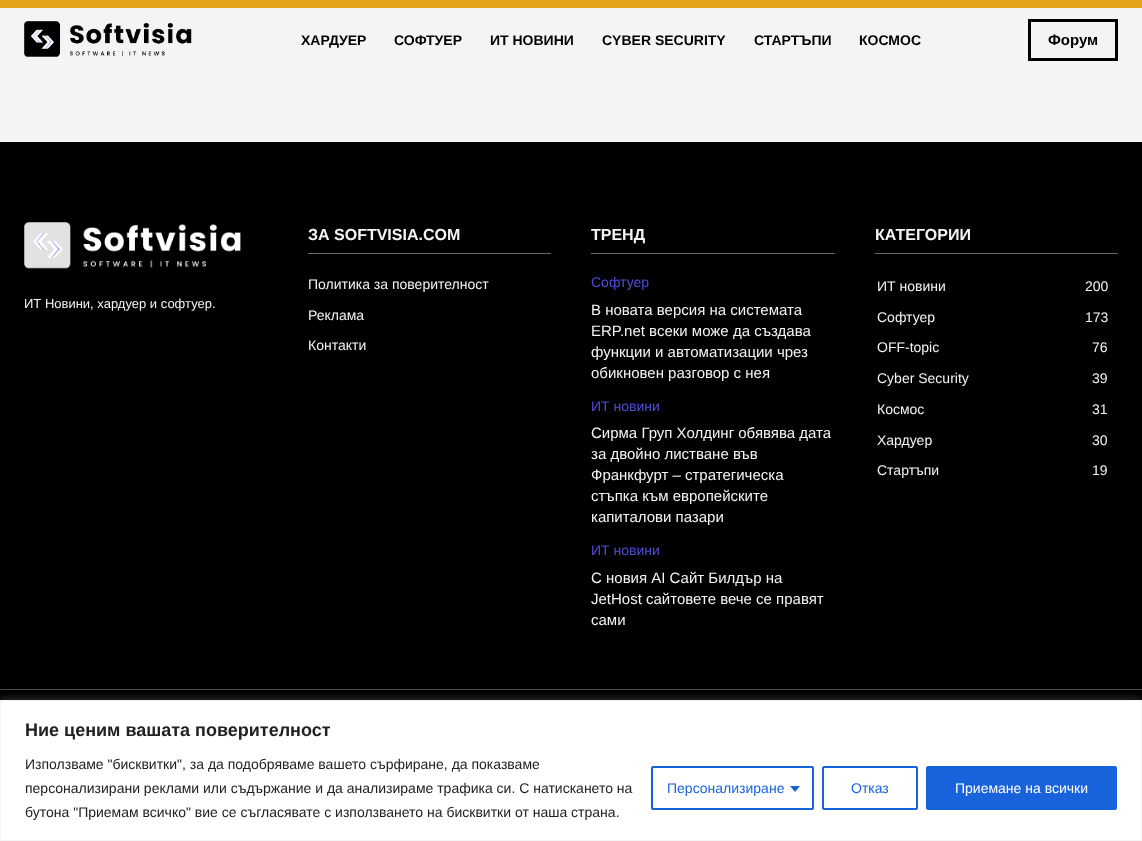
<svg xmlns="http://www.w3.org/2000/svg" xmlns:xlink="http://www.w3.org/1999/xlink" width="1142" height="841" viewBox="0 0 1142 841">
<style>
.cls-1{font:bold 14px Liberation Sans;fill:#000000}
.cls-2{font:bold 15px Liberation Sans;fill:#000000}
.cls-3{font:13px Liberation Sans;fill:#f4f4f4}
.cls-4{font:bold 16px Liberation Sans;fill:#f4f4f4}
.cls-5{font:14px Liberation Sans;fill:#f4f4f4}
.cls-6{font:14px Liberation Sans;fill:#504bdc}
.cls-7{font:15px Liberation Sans;fill:#f4f4f4}
.cls-8{font:bold 18px Liberation Sans;fill:#212121}
.cls-9{font:14px Liberation Sans;fill:#212121}
.cls-10{font:14px Liberation Sans;fill:#1863dc}
.cls-11{font:14px Liberation Sans;fill:#ffffff}
</style>
<rect width="100%" height="100%" fill="#f4f4f4"/>
<rect fill="#e4a41e" x="0" y="0" width="1142" height="8"/>
<image xlink:href="image0.png" x="24" y="21" width="168" height="36"/>
<rect fill="none" stroke="#000000" stroke-width="3" x="1029.5" y="20.5" width="87" height="39"/>
<rect fill="#000000" x="0" y="142" width="1142" height="547"/>
<rect fill="#4d4d4d" x="0" y="689" width="1142" height="1"/>
<image xlink:href="image1.png" x="24" y="222" width="217" height="47"/>
<rect fill="#666666" x="308" y="253" width="243" height="1"/>
<rect fill="#666666" x="591" y="253" width="244" height="1"/>
<rect fill="#666666" x="875" y="253" width="243" height="1"/>
<rect fill="#000000" x="0" y="690" width="1142" height="10"/>
<rect fill="#acabab" fill-opacity="0.3" filter="blur(5px)" x="0" y="699" width="1142" height="141"/>
<rect fill="#ffffff" stroke="#f4f4f4" x="0.5" y="700.5" width="1141" height="140"/>
<rect fill="none" stroke="#1863dc" stroke-width="2" x="652" y="767" width="161" height="42" rx="1"/>
<path fill="#1863dc" d="M790 786H800L795 792Z"/>
<rect fill="none" stroke="#1863dc" stroke-width="2" x="823" y="767" width="94" height="42" rx="1"/>
<rect fill="#1863dc" stroke="#1863dc" stroke-width="2" x="927" y="767" width="189" height="42" rx="1"/>
<text class="cls-1" x="301" y="45">ХАРДУЕР</text>
<text class="cls-1" x="394" y="45">СОФТУЕР</text>
<text class="cls-1" x="490" y="45">ИТ НОВИНИ</text>
<text class="cls-1" x="602" y="45">CYBER SECURITY</text>
<text class="cls-1" x="754" y="45">СТАРТЪПИ</text>
<text class="cls-1" x="859" y="45">КОСМОС</text>
<text class="cls-2" x="1048" y="45">Форум</text>
<text class="cls-3" x="24" y="308">ИТ Новини, хардуер и софтуер.</text>
<text class="cls-4" x="308" y="240">ЗА SOFTVISIA.COM</text>
<text class="cls-5" x="308" y="289">Политика за поверителност</text>
<text class="cls-5" x="308" y="320">Реклама</text>
<text class="cls-5" x="308" y="350">Контакти</text>
<text class="cls-4" x="591" y="240">ТРЕНД</text>
<text class="cls-6" x="591" y="287">Софтуер</text>
<text class="cls-7"><tspan x="591" y="315">В новата версия на системата</tspan><tspan x="591" y="336">ERP.net всеки може да създава</tspan><tspan x="591" y="357">функции и автоматизации чрез</tspan><tspan x="591" y="378">обикновен разговор с нея</tspan></text>
<text class="cls-6" x="591" y="411">ИТ новини</text>
<text class="cls-7"><tspan x="591" y="438">Сирма Груп Холдинг обявява дата</tspan><tspan x="591" y="459">за двойно листване във</tspan><tspan x="591" y="480">Франкфурт – стратегическа</tspan><tspan x="591" y="501">стъпка към европейските</tspan><tspan x="591" y="522">капиталови пазари</tspan></text>
<text class="cls-6" x="591" y="555">ИТ новини</text>
<text class="cls-7"><tspan x="591" y="583">С новия AI Сайт Билдър на</tspan><tspan x="591" y="604">JetHost сайтовете вече се правят</tspan><tspan x="591" y="625">сами</tspan></text>
<text class="cls-4" x="875" y="240">КАТЕГОРИИ</text>
<text class="cls-5" x="877" y="291">ИТ новини</text>
<text class="cls-5" x="1085" y="291">200</text>
<text class="cls-5" x="877" y="322">Софтуер</text>
<text class="cls-5" x="1085" y="322">173</text>
<text class="cls-5" x="877" y="352">OFF-topic</text>
<text class="cls-5" x="1092" y="352">76</text>
<text class="cls-5" x="877" y="383">Cyber Security</text>
<text class="cls-5" x="1092" y="383">39</text>
<text class="cls-5" x="877" y="414">Космос</text>
<text class="cls-5" x="1092" y="414">31</text>
<text class="cls-5" x="877" y="445">Хардуер</text>
<text class="cls-5" x="1092" y="445">30</text>
<text class="cls-5" x="877" y="475">Стартъпи</text>
<text class="cls-5" x="1092" y="475">19</text>
<text class="cls-8" x="25" y="736">Ние ценим вашата поверителност</text>
<text class="cls-9"><tspan x="25" y="769">Използваме "бисквитки", за да подобряваме вашето сърфиране, да показваме</tspan><tspan x="25" y="793">персонализирани реклами или съдържание и да анализираме трафика си. С натискането на</tspan><tspan x="25" y="817">бутона "Приемам всичко" вие се съгласявате с използването на бисквитки от наша страна.</tspan></text>
<text class="cls-10" x="667" y="793">Персонализиране</text>
<text class="cls-10" x="851" y="793">Отказ</text>
<text class="cls-11" x="955" y="793">Приемане на всички</text>
</svg>
